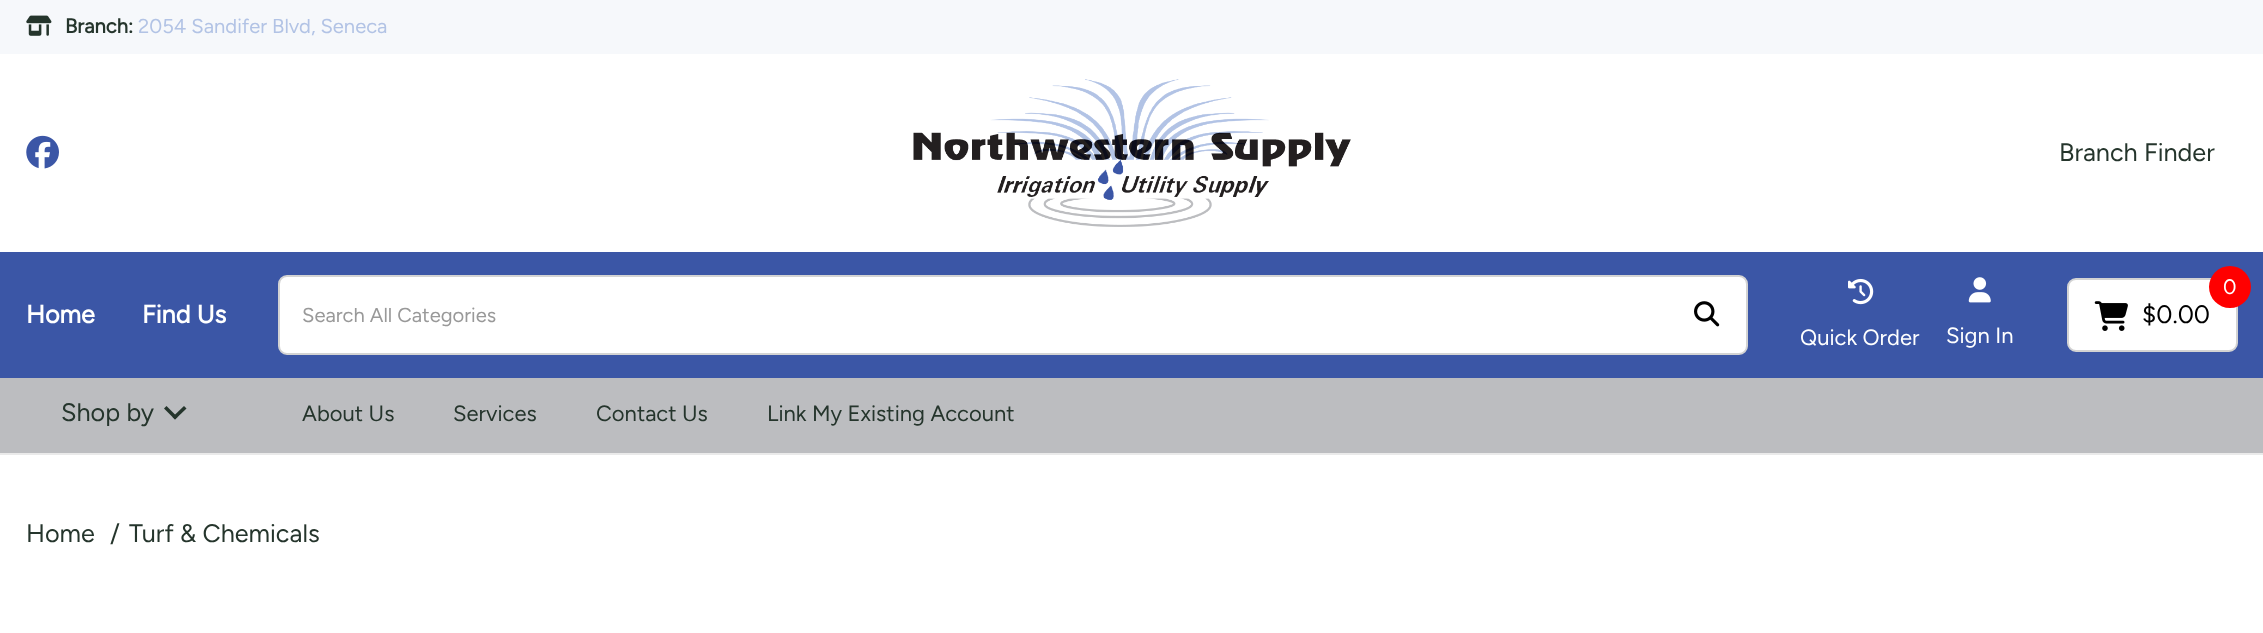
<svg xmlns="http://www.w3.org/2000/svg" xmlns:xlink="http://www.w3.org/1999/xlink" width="2263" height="633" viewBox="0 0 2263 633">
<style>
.cls-1{font:bold 20.2px Figtree;fill:#25352c}
.cls-2{font:300 20.2px Figtree;fill:#b2c3e5}
.cls-3{font:300 25.25px Figtree;fill:#25352c}
.cls-4{font:bold 25.25px Figtree;fill:#ffffff}
.cls-5{font:300 20.2px Figtree;fill:#999999}
.cls-6{font:300 25.25px Figtree;fill:#000000}
.cls-7{font:300 21px Figtree;fill:#ffffff}
.cls-8{font:300 22px Figtree;fill:#ffffff}
.cls-9{font:300 22px Figtree;fill:#25352c}
</style>
<rect width="100%" height="100%" fill="#ffffff"/>
<rect fill="#f6f8fb" x="0" y="0" width="2263" height="54"/>
<image xlink:href="image0.png" x="26" y="15" width="26" height="21"/>
<image xlink:href="image1.png" x="26" y="135" width="33" height="34"/>
<image xlink:href="image2.png" x="913" y="79" width="438" height="148"/>
<rect fill="#3b56a6" x="0" y="252" width="2263" height="126"/>
<rect fill="#ffffff" stroke="#d3d3d3" stroke-width="2" x="279" y="276" width="1468" height="78" rx="8"/>
<image xlink:href="image3.png" x="1694" y="301" width="26" height="26"/>
<rect fill="#ffffff" stroke="#d3d3d3" stroke-width="2" x="2068" y="279" width="169" height="72" rx="8"/>
<image xlink:href="image4.png" x="2094" y="301" width="34" height="30"/>
<image xlink:href="image5.png" x="1848" y="278" width="26" height="27"/>
<image xlink:href="image6.png" x="1968" y="277" width="23" height="26"/>
<rect fill="#eaeaea" x="0" y="453" width="2263" height="2"/>
<rect fill="#bcbdc0" x="0" y="378" width="2263" height="75"/>
<path fill="#25352c" d="M166.5 406L177.5 417L175 419.5L164 408.5Z"/>
<path fill="#25352c" d="M172.5 417L184 406L186.5 408.5L175 419.5Z"/>
<text class="cls-1" x="65" y="33">Branch:</text>
<text class="cls-2" x="138" y="33">2054 Sandifer Blvd, Seneca</text>
<text class="cls-3" x="2059" y="161">Branch Finder</text>
<text class="cls-4" x="26" y="323">Home</text>
<text class="cls-4" x="142" y="323">Find Us</text>
<text class="cls-5" x="302" y="322">Search All Categories</text>
<text class="cls-6" x="2142" y="323">$0.00</text>
<circle fill="#ff0000" cx="2230" cy="287" r="21"/>
<text class="cls-7" x="2223" y="294">0</text>
<text class="cls-8" x="1800" y="345">Quick Order</text>
<text class="cls-8" x="1946" y="343">Sign In</text>
<text class="cls-3" x="61" y="421">Shop by</text>
<text class="cls-9" x="302" y="421">About Us</text>
<text class="cls-9" x="453" y="421">Services</text>
<text class="cls-9" x="596" y="421">Contact Us</text>
<text class="cls-9" x="767" y="421">Link My Existing Account</text>
<text class="cls-3" x="26" y="542">Home</text>
<text class="cls-3" x="110" y="542">/</text>
<text class="cls-3" x="129" y="542">Turf &amp; Chemicals</text>
</svg>
